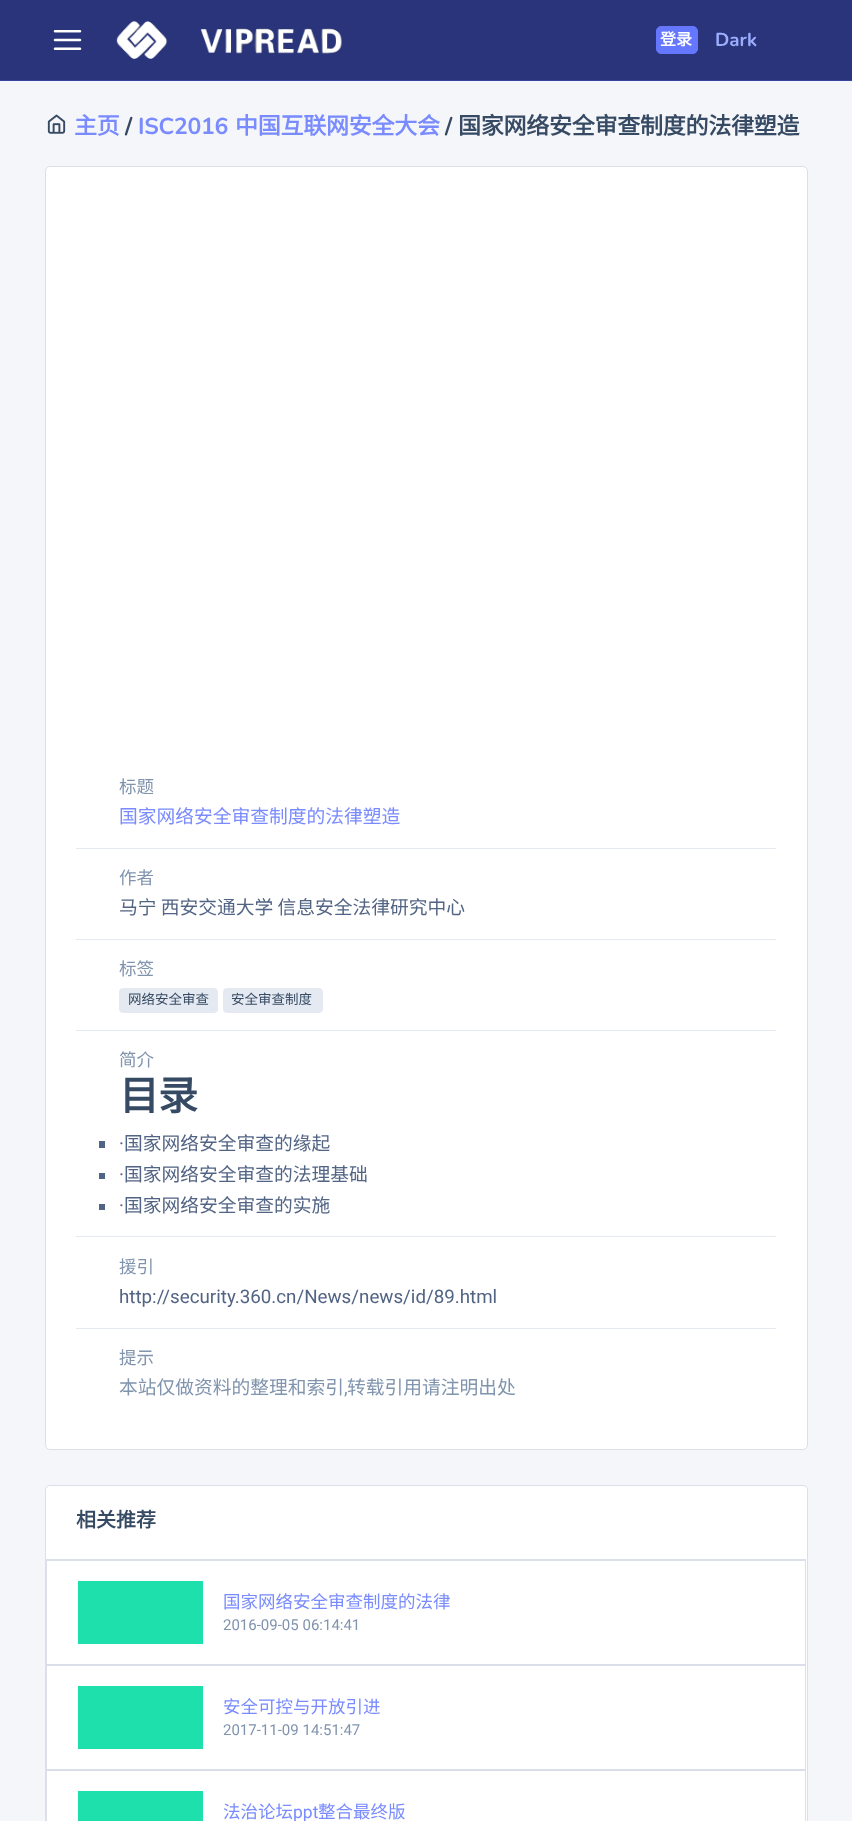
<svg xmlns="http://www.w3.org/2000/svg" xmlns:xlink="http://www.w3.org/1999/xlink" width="852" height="1821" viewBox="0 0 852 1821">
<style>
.cls-1{font:bold 16px Noto Sans CJK SC;fill:#ffffff}
.cls-2{font:bold 18.75px Nunito;fill:#9cadfd}
.cls-3{font:bold 23px Noto Sans CJK SC;letter-spacing:-0.25px;fill:#798bff}
.cls-4{font:bold 23px Nunito;letter-spacing:-0.25px;fill:#364a63}
.cls-5{font:bold 23px Nunito;letter-spacing:-0.25px;fill:#798bff}
.cls-6{font:bold 23px Noto Sans CJK SC;letter-spacing:-0.25px;fill:#364a63}
.cls-7{font:17.5px Noto Sans CJK SC;fill:#8094ae}
.cls-8{font:18.75px Noto Sans CJK SC;fill:#798bff}
.cls-9{font:18.75px Noto Sans CJK SC;fill:#526484}
.cls-10{font:13.5px Noto Sans CJK SC;fill:#364a63}
.cls-11{font:bold 40px Noto Sans CJK SC;letter-spacing:-1px;fill:#364a63}
.cls-12{font:18.75px Roboto;fill:#526484}
.cls-13{font:18.75px Noto Sans CJK SC;fill:#8094ae}
.cls-14{font:18.75px Roboto;fill:#8094ae}
.cls-15{font:bold 20px Noto Sans CJK SC;fill:#364a63}
.cls-16{font:17.5px Noto Sans CJK SC;fill:#798bff}
.cls-17{font:15px Roboto;fill:#8094ae}
.cls-18{font:17.5px Roboto;fill:#798bff}
</style>
<rect width="100%" height="100%" fill="#f5f6fa"/>
<rect fill="#29347a" x="0" y="0" width="852" height="80"/>
<rect fill="#3644a0" x="0" y="80" width="852" height="1"/>
<image xlink:href="image0.png" x="53" y="30" width="29" height="20"/>
<image xlink:href="image1.png" x="116" y="21" width="226" height="38"/>
<rect fill="#6576ff" stroke="#6576ff" x="656.5" y="26.5" width="41" height="27" rx="4.5"/>
<image xlink:href="image2.png" x="47" y="114" width="19" height="20"/>
<rect fill="#ffffff" stroke="#dbdfea" x="45.5" y="166.5" width="762" height="1283" rx="4.5"/>
<rect fill="#e5e9f2" x="76" y="848" width="700" height="1"/>
<rect fill="#e5e9f2" x="76" y="939" width="700" height="1"/>
<rect fill="#e5e9f2" x="76" y="1030" width="700" height="1"/>
<rect fill="#e5e9f2" stroke="#e5e9f2" x="119.5" y="988.5" width="98" height="24" rx="3.5"/>
<rect fill="#e5e9f2" stroke="#e5e9f2" x="223.5" y="988.5" width="99" height="24" rx="3.5"/>
<rect fill="#e5e9f2" x="76" y="1236" width="700" height="1"/>
<rect fill="#526484" x="99" y="1141" width="6" height="7"/>
<rect fill="#526484" x="99" y="1173" width="6" height="6"/>
<rect fill="#526484" x="99" y="1204" width="6" height="6"/>
<rect fill="#e5e9f2" x="76" y="1328" width="700" height="1"/>
<rect fill="#ffffff" stroke="#dbdfea" x="45.5" y="1485.5" width="762" height="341" rx="4.5"/>
<rect fill="#dbdfea" x="46" y="1559" width="760" height="1"/>
<rect fill="none" stroke="#dbdfea" x="46.5" y="1560.5" width="759" height="104"/>
<rect fill="#1ee0ac" x="78" y="1581" width="125" height="63"/>
<rect fill="none" stroke="#dbdfea" x="46.5" y="1665.5" width="759" height="104"/>
<rect fill="#1ee0ac" x="78" y="1686" width="125" height="63"/>
<rect fill="none" stroke="#dbdfea" x="46.5" y="1770.5" width="759" height="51"/>
<rect fill="#1ee0ac" x="78" y="1791" width="125" height="30"/>
<text class="cls-1" x="660" y="45">登录</text>
<text class="cls-2" x="715" y="46">Dark</text>
<text class="cls-3" x="74" y="134">主页</text>
<text class="cls-4" x="125" y="134">/</text>
<text class="cls-5" x="138" y="134">ISC2016</text>
<text class="cls-3" x="235" y="134">中国互联网安全大会</text>
<text class="cls-4" x="445" y="134">/</text>
<text class="cls-6" x="458" y="134">国家网络安全审查制度的法律塑造</text>
<text class="cls-7" x="119" y="793">标题</text>
<text class="cls-8" x="119" y="823">国家网络安全审查制度的法律塑造</text>
<text class="cls-7" x="119" y="884">作者</text>
<text class="cls-9" x="119" y="914">马宁 西安交通大学 信息安全法律研究中心</text>
<text class="cls-7" x="119" y="975">标签</text>
<text class="cls-10" x="128" y="1004">网络安全审查</text>
<text class="cls-10" x="231" y="1004">安全审查制度</text>
<text class="cls-7" x="119" y="1066">简介</text>
<text class="cls-11" x="119" y="1110">目录</text>
<text class="cls-12" x="119" y="1150">·</text>
<text class="cls-9" x="124" y="1150">国家网络安全审查的缘起</text>
<text class="cls-12" x="119" y="1181">·</text>
<text class="cls-9" x="124" y="1181">国家网络安全审查的法理基础</text>
<text class="cls-12" x="119" y="1212">·</text>
<text class="cls-9" x="124" y="1212">国家网络安全审查的实施</text>
<text class="cls-7" x="119" y="1273">援引</text>
<text class="cls-12" x="119" y="1303">http://security.360.cn/News/news/id/89.html</text>
<text class="cls-7" x="119" y="1364">提示</text>
<text class="cls-13" x="119" y="1394">本站仅做资料的整理和索引</text>
<text class="cls-14" x="344" y="1394">,</text>
<text class="cls-13" x="347" y="1394">转载引用请注明出处</text>
<text class="cls-15" x="76" y="1527">相关推荐</text>
<text class="cls-16" x="223" y="1608">国家网络安全审查制度的法律</text>
<text class="cls-17" x="223" y="1630">2016-09-05 06:14:41</text>
<text class="cls-16" x="223" y="1713">安全可控与开放引进</text>
<text class="cls-17" x="223" y="1735">2017-11-09 14:51:47</text>
<text class="cls-16" x="223" y="1818">法治论坛</text>
<text class="cls-18" x="293" y="1818">ppt</text>
<text class="cls-16" x="318" y="1818">整合最终版</text>
</svg>
